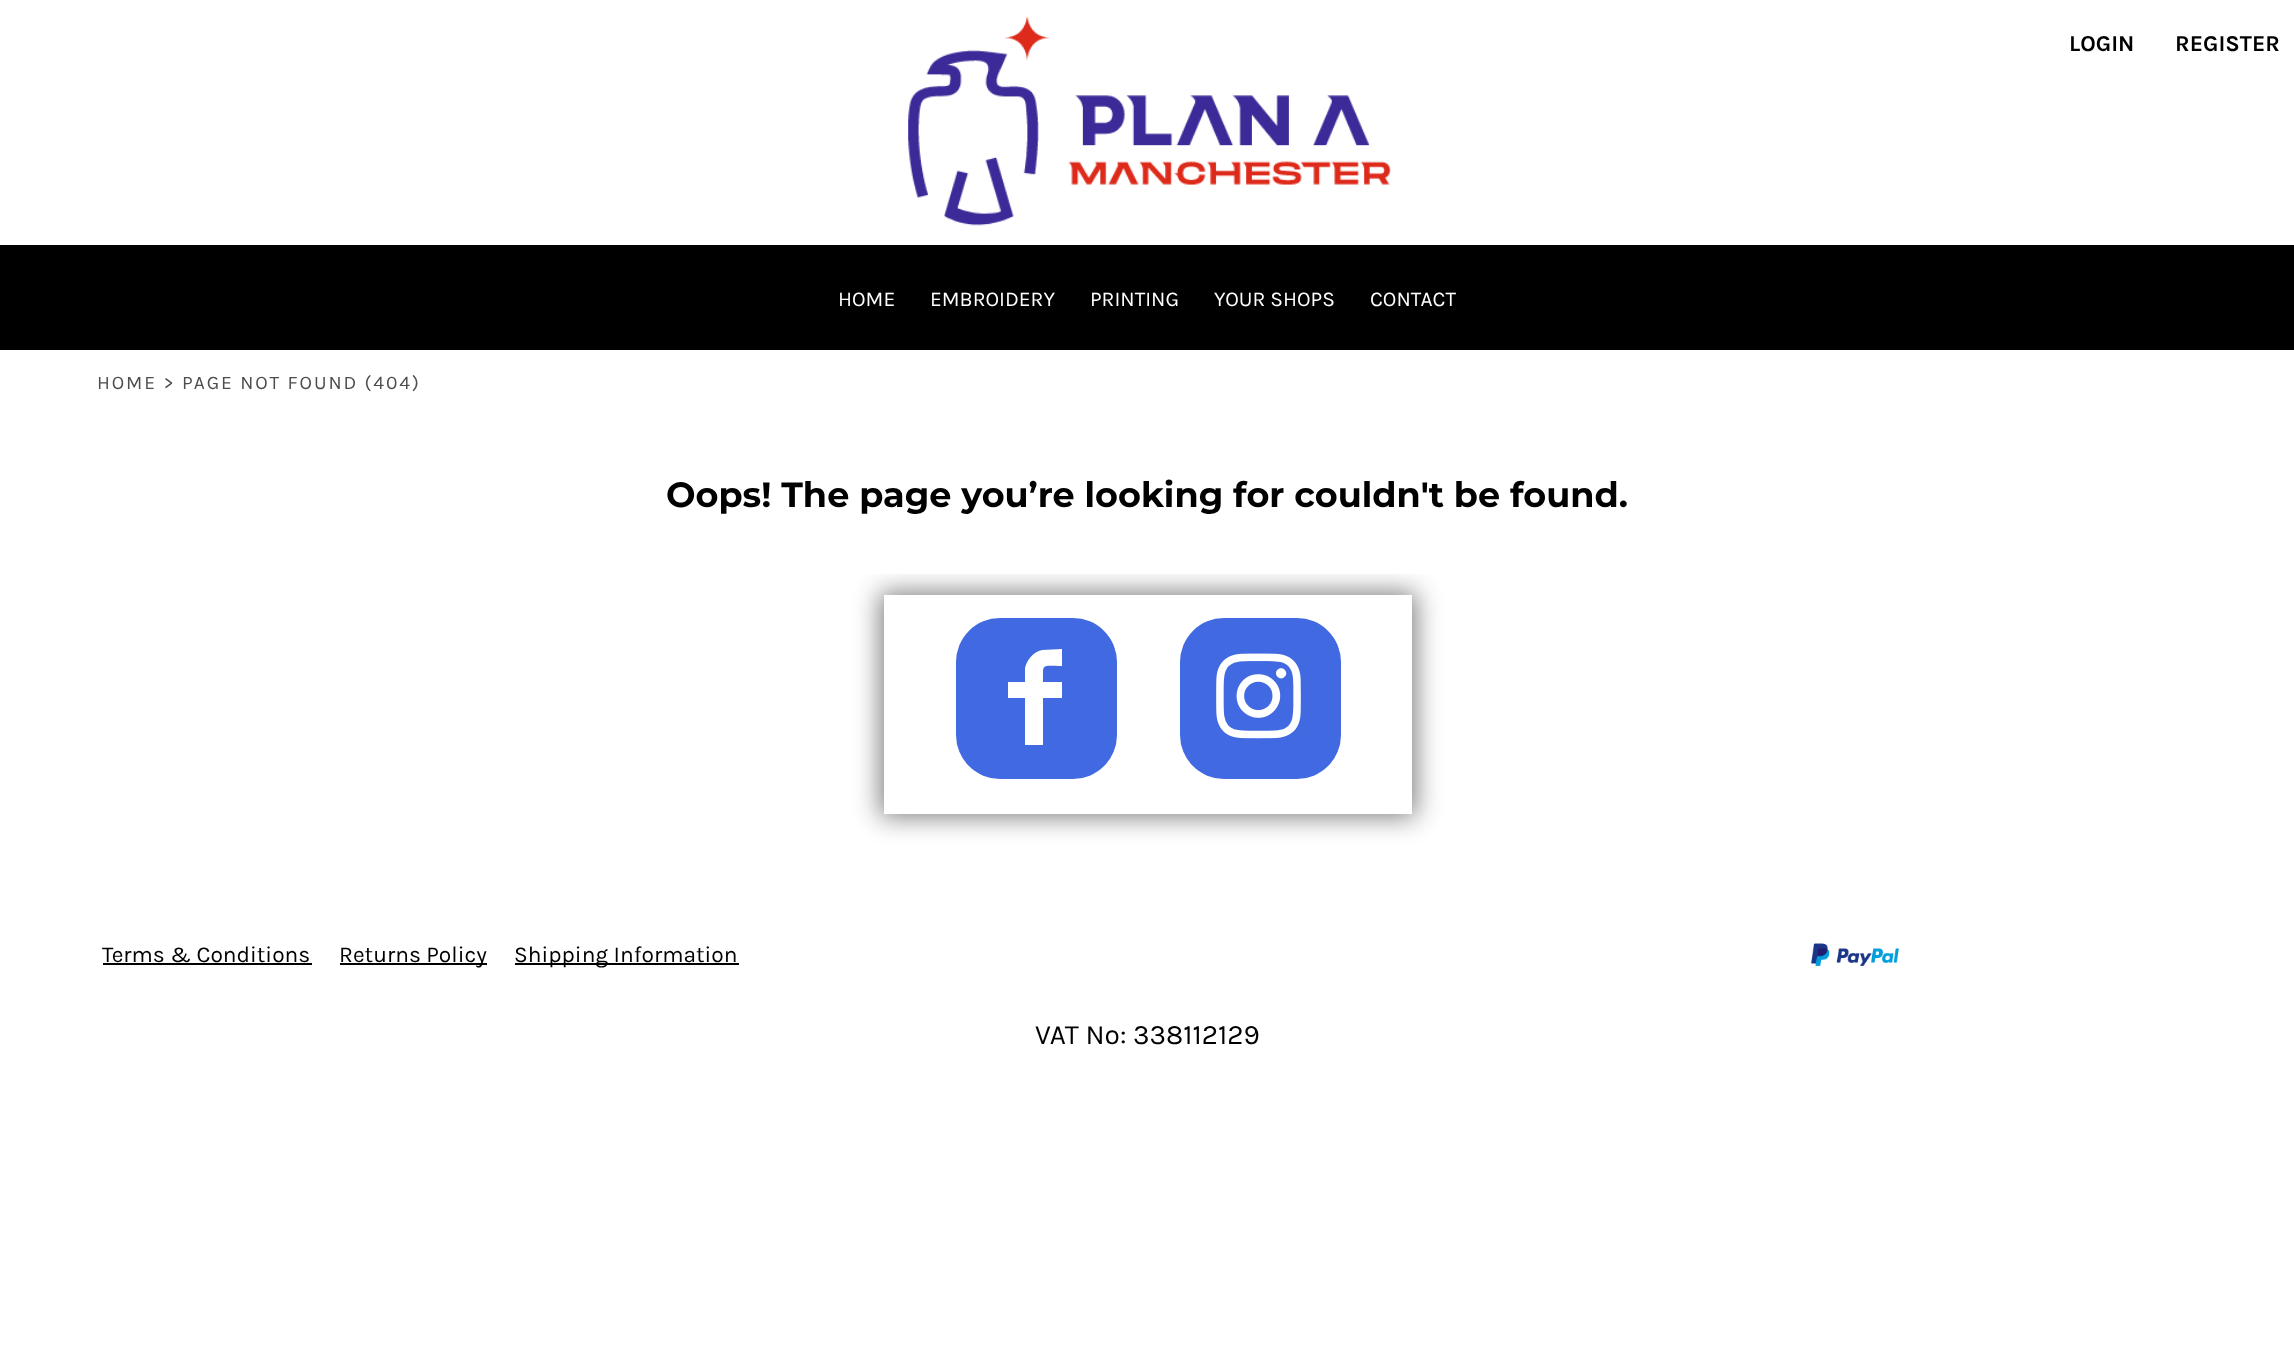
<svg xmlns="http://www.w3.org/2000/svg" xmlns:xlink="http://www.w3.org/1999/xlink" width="2294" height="1355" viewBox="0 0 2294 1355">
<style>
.cls-1{font:bold 22.75px Karla;fill:#000000}
.cls-2{font:21px Karla;fill:#ffffff}
.cls-3{font:19.25px Karla;letter-spacing:1.9px;fill:#4d4d4d}
.cls-4{font:bold 35px Montserrat;fill:#000000}
.cls-5{font:22.75px Karla;fill:#000000}
.cls-6{font:28px Karla;fill:#000000}
</style>
<defs>
<clipPath id="clip1"><rect x="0" y="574" width="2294" height="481"/></clipPath>
<clipPath id="clip2"><path d="M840 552H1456V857H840ZM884 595H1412V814H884Z" clip-rule="evenodd"/></clipPath>
</defs>
<rect width="100%" height="100%" fill="#ffffff"/>
<image xlink:href="image0.png" x="908" y="17" width="483" height="209"/>
<rect fill="#000000" x="0" y="245" width="2294" height="105"/>
<g clip-path="url(#clip1)">
<g clip-path="url(#clip2)">
<rect fill="#000000" fill-opacity="0.5" filter="blur(13px)" x="880" y="592" width="536" height="225"/>
</g>
</g>
<rect fill="#4169e1" x="956" y="618" width="161" height="161" rx="44"/>
<path fill="#ffffff" d="M1062 666C1041 666 1043 663 1043 682H1062V698H1043V745H1025V698H1008V682H1025V668C1027 660 1033 652 1042 650L1062 649Z"/>
<rect fill="#4169e1" x="1180" y="618" width="161" height="161" rx="44"/>
<image xlink:href="image1.png" x="1216" y="653" width="85" height="86"/>
<rect fill="#000000" x="103" y="963" width="209" height="2"/>
<rect fill="#000000" x="340" y="963" width="147" height="2"/>
<rect fill="#000000" x="515" y="963" width="224" height="2"/>
<image xlink:href="image2.png" x="1811" y="943" width="88" height="23"/>
<text class="cls-1" x="2069" y="51">LOGIN</text>
<text class="cls-1" x="2175" y="51">REGISTER</text>
<text class="cls-2" x="838" y="306">HOME</text>
<text class="cls-2" x="930" y="306">EMBROIDERY</text>
<text class="cls-2" x="1090" y="306">PRINTING</text>
<text class="cls-2" x="1214" y="306">YOUR SHOPS</text>
<text class="cls-2" x="1370" y="306">CONTACT</text>
<text class="cls-3" x="97" y="389">HOME &gt; PAGE NOT FOUND (404)</text>
<text class="cls-4" x="666" y="507">Oops! The page you’re looking for couldn't be found.</text>
<text class="cls-5" x="102" y="962">Terms &amp; Conditions</text>
<text class="cls-5" x="339" y="962">Returns Policy</text>
<text class="cls-5" x="514" y="962">Shipping Information</text>
<text class="cls-6" x="1035" y="1044">VAT No: 338112129</text>
</svg>
